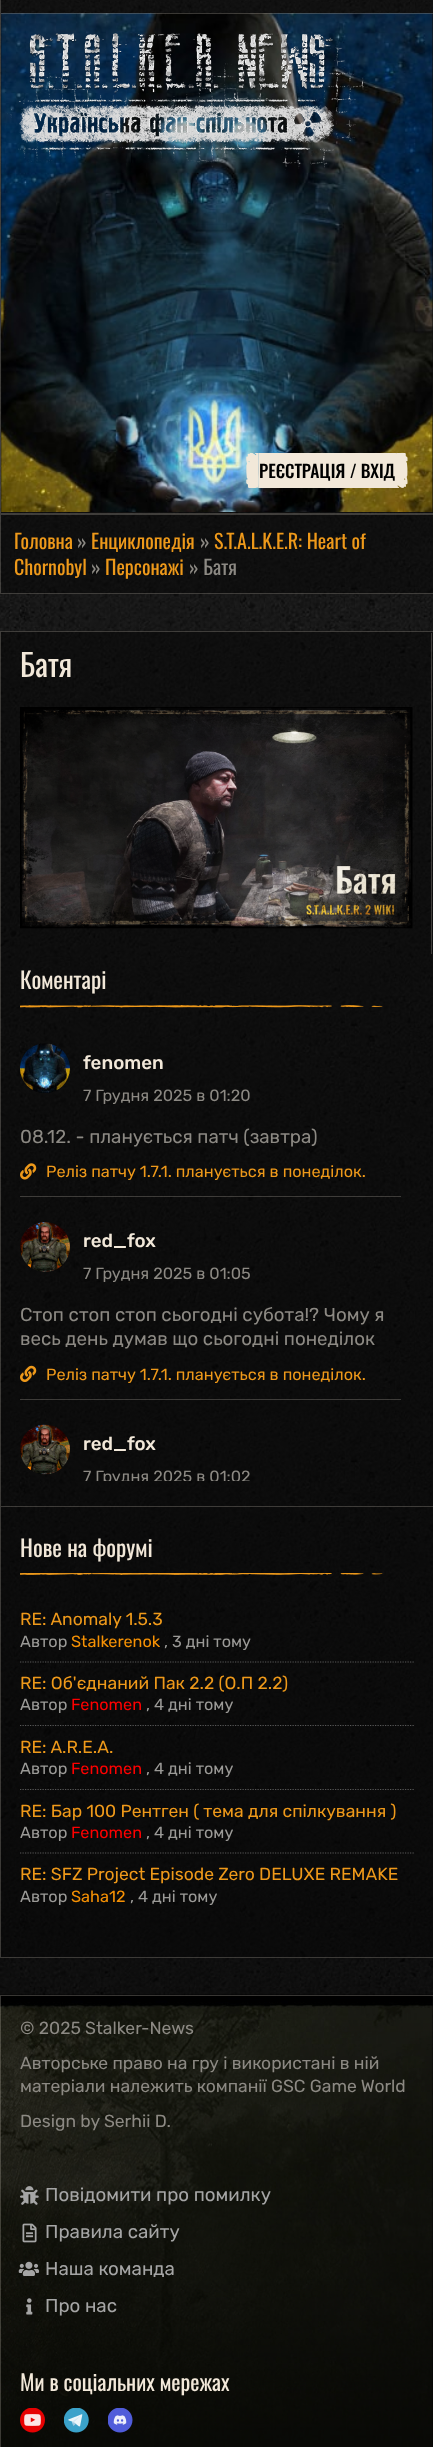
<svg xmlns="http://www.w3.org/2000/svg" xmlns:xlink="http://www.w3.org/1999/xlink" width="433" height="2447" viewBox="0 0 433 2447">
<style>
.cls-1{font:500 17.5px Oswald;fill:#000000}
.cls-2{font:20px Oswald;fill:#ee991a}
.cls-3{font:20px Oswald;fill:#8c8983}
.cls-4{font:31px Oswald;fill:#f2e8d9}
.cls-5{font:23px Oswald;fill:#f2e8d9}
.cls-6{font:500 18.75px Rubik;fill:#f2e8d9}
.cls-7{font:16.25px Rubik;fill:#8c8983}
.cls-8{font:18.75px Rubik;fill:#8c8983}
.cls-9{font:16.25px Rubik;fill:#ee991a}
.cls-10{font:17.5px Rubik;fill:#ee991a}
.cls-11{font:16.25px Rubik;fill:#9b9a97}
.cls-12{font:16.25px Rubik;fill:#f69104}
.cls-13{font:16.25px Rubik;fill:#ff0000}
.cls-14{font:17.5px Rubik;fill:#8c8983}
.cls-15{font:18.75px Rubik;fill:#a5a5a5}
.cls-16{font:21.9px Oswald;fill:#f2e8d9}
</style>
<defs>
<clipPath id="clip1"><rect x="20" y="1044" width="394" height="437"/></clipPath>
</defs>
<rect width="100%" height="100%" fill="#ffffff"/>
<image xlink:href="image0.png" x="0" y="0" width="433" height="2447"/>
<rect fill="#060605" fill-opacity="0.5" x="0" y="0" width="433" height="594"/>
<rect fill="none" stroke="#f2e8d9" stroke-opacity="0.22" x="0.5" y="-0.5" width="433" height="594"/>
<image xlink:href="image1.png" x="1" y="13" width="432" height="499"/>
<rect fill="#f2e8d9" fill-opacity="0.22" x="1" y="13" width="432" height="1"/>
<image xlink:href="image2.png" x="7" y="32" width="361" height="138"/>
<image xlink:href="image3.png" x="246" y="453" width="13" height="35"/>
<rect fill="#f2e8d9" x="259" y="453" width="136" height="35"/>
<image xlink:href="image4.png" x="395" y="453" width="13" height="35"/>
<rect fill="#f2e8d9" fill-opacity="0.22" x="1" y="513" width="432" height="1"/>
<rect fill="#f2e8d9" fill-opacity="0.22" x="1" y="514" width="432" height="1"/>
<rect fill="#060605" fill-opacity="0.5" x="0" y="631" width="433" height="1327"/>
<rect fill="none" stroke="#f2e8d9" stroke-opacity="0.22" x="0.5" y="631.5" width="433" height="1326"/>
<rect fill="#f2e8d9" fill-opacity="0.22" x="431" y="633" width="1" height="321"/>
<image xlink:href="image5.png" x="20" y="707" width="393" height="222"/>
<image xlink:href="image6.png" x="20" y="1005" width="363" height="3"/>
<rect fill="#f2e8d9" fill-opacity="0.22" x="20" y="1196" width="381" height="1"/>
<image xlink:href="image7.png" x="20" y="1043" width="50" height="50"/>
<image xlink:href="image8.png" x="20" y="1163" width="17" height="17"/>
<rect fill="#f2e8d9" fill-opacity="0.22" x="20" y="1399" width="381" height="1"/>
<image xlink:href="image9.png" x="20" y="1222" width="50" height="50"/>
<image xlink:href="image10.png" x="20" y="1365" width="17" height="17"/>
<image xlink:href="image11.png" x="20" y="1424" width="50" height="51"/>
<rect fill="#f2e8d9" fill-opacity="0.22" x="1" y="1506" width="432" height="1"/>
<image xlink:href="image12.png" x="20" y="1573" width="363" height="2"/>
<path fill="none" stroke="#585858" stroke-width="1.2" stroke-dasharray="1.25 1.25" d="M20 1662H414"/>
<path fill="none" stroke="#585858" stroke-width="1.2" stroke-dasharray="1.25 1.25" d="M20 1725.5H414"/>
<path fill="none" stroke="#585858" stroke-width="1.2" stroke-dasharray="1.25 1.25" d="M20 1789.5H414"/>
<path fill="none" stroke="#585858" stroke-width="1.2" stroke-dasharray="1.25 1.25" d="M20 1853H414"/>
<image xlink:href="image13.png" x="0" y="1994" width="433" height="453"/>
<rect fill="none" stroke="#f2e8d9" stroke-opacity="0.22" x="0.5" y="1995.5" width="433" height="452"/>
<image xlink:href="image14.png" x="20" y="2186" width="19" height="19"/>
<image xlink:href="image15.png" x="22" y="2223" width="15" height="20"/>
<image xlink:href="image16.png" x="18" y="2261" width="22" height="15"/>
<image xlink:href="image17.png" x="26" y="2298" width="7" height="17"/>
<image xlink:href="image18.png" x="20" y="2408" width="25" height="25"/>
<image xlink:href="image19.png" x="64" y="2408" width="25" height="25"/>
<image xlink:href="image20.png" x="108" y="2408" width="25" height="25"/>
<text class="cls-1" x="259" y="478">РЕЄСТРАЦІЯ / ВХІД</text>
<text class="cls-2" x="14" y="549">Головна</text>
<text class="cls-3" x="77" y="549">»</text>
<text class="cls-2" x="91" y="549">Енциклопедія</text>
<text class="cls-3" x="200" y="549">»</text>
<text class="cls-2" x="214" y="549">S.T.A.L.K.E.R: Heart of</text>
<text class="cls-2" x="14" y="575">Chornobyl</text>
<text class="cls-3" x="91" y="575">»</text>
<text class="cls-2" x="105" y="575">Персонажі</text>
<text class="cls-3" x="189" y="575">» Батя</text>
<text class="cls-4" x="20" y="677">Батя</text>
<text class="cls-5" x="20" y="989">Коментарі</text>
<text class="cls-6" x="83" y="1069">fenomen</text>
<text class="cls-7" x="83" y="1101">7 Грудня 2025 в 01:20</text>
<text class="cls-8" x="20" y="1143">08.12. - планується патч (завтра)</text>
<text class="cls-9" x="46" y="1177">Реліз патчу 1.7.1. планується в понеділок.</text>
<text class="cls-6" x="83" y="1247">red_fox</text>
<text class="cls-7" x="83" y="1279">7 Грудня 2025 в 01:05</text>
<text class="cls-8"><tspan x="20" y="1321">Стоп стоп стоп сьогодні субота!? Чому я</tspan><tspan x="20" y="1345">весь день думав що сьогодні понеділок</tspan></text>
<text class="cls-9" x="46" y="1380">Реліз патчу 1.7.1. планується в понеділок.</text>
<text class="cls-6" x="83" y="1450">red_fox</text>
<g clip-path="url(#clip1)">
<text class="cls-7" x="83" y="1482">7 Грудня 2025 в 01:02</text>
</g>
<text class="cls-5" x="20" y="1557">Нове на форумі</text>
<text class="cls-10" x="20" y="1625">RE: Anomaly 1.5.3</text>
<text class="cls-11" x="20" y="1647">Автор</text>
<text class="cls-12" x="71" y="1647">Stalkerenok</text>
<text class="cls-11" x="164" y="1647">, 3 дні тому</text>
<text class="cls-10" x="20" y="1689">RE: Об'єднаний Пак 2.2 (О.П 2.2)</text>
<text class="cls-11" x="20" y="1710">Автор</text>
<text class="cls-13" x="71" y="1710">Fenomen</text>
<text class="cls-11" x="146" y="1710">, 4 дні тому</text>
<text class="cls-10" x="20" y="1753">RE: A.R.E.A.</text>
<text class="cls-11" x="20" y="1774">Автор</text>
<text class="cls-13" x="71" y="1774">Fenomen</text>
<text class="cls-11" x="146" y="1774">, 4 дні тому</text>
<text class="cls-10" x="20" y="1817">RE: Бар 100 Рентген ( тема для спілкування )</text>
<text class="cls-11" x="20" y="1838">Автор</text>
<text class="cls-13" x="71" y="1838">Fenomen</text>
<text class="cls-11" x="146" y="1838">, 4 дні тому</text>
<text class="cls-10" x="20" y="1880">RE: SFZ Project Episode Zero DELUXE REMAKE</text>
<text class="cls-11" x="20" y="1902">Автор</text>
<text class="cls-12" x="71" y="1902">Saha12</text>
<text class="cls-11" x="130" y="1902">, 4 дні тому</text>
<text class="cls-14" x="20" y="2034">© 2025 Stalker-News</text>
<text class="cls-14"><tspan x="20" y="2069">Авторське право на гру і використані в ній</tspan><tspan x="20" y="2092">матеріали належить компанії GSC Game World</tspan></text>
<text class="cls-14" x="20" y="2127">Design by Serhii D.</text>
<text class="cls-15"><tspan x="45" y="2201">Повідомити про помилку</tspan><tspan x="45" y="2238">Правила сайту</tspan><tspan x="45" y="2275">Наша команда</tspan><tspan x="45" y="2312">Про нас</tspan></text>
<text class="cls-16" x="20" y="2391">Ми в соціальних мережах</text>
</svg>
